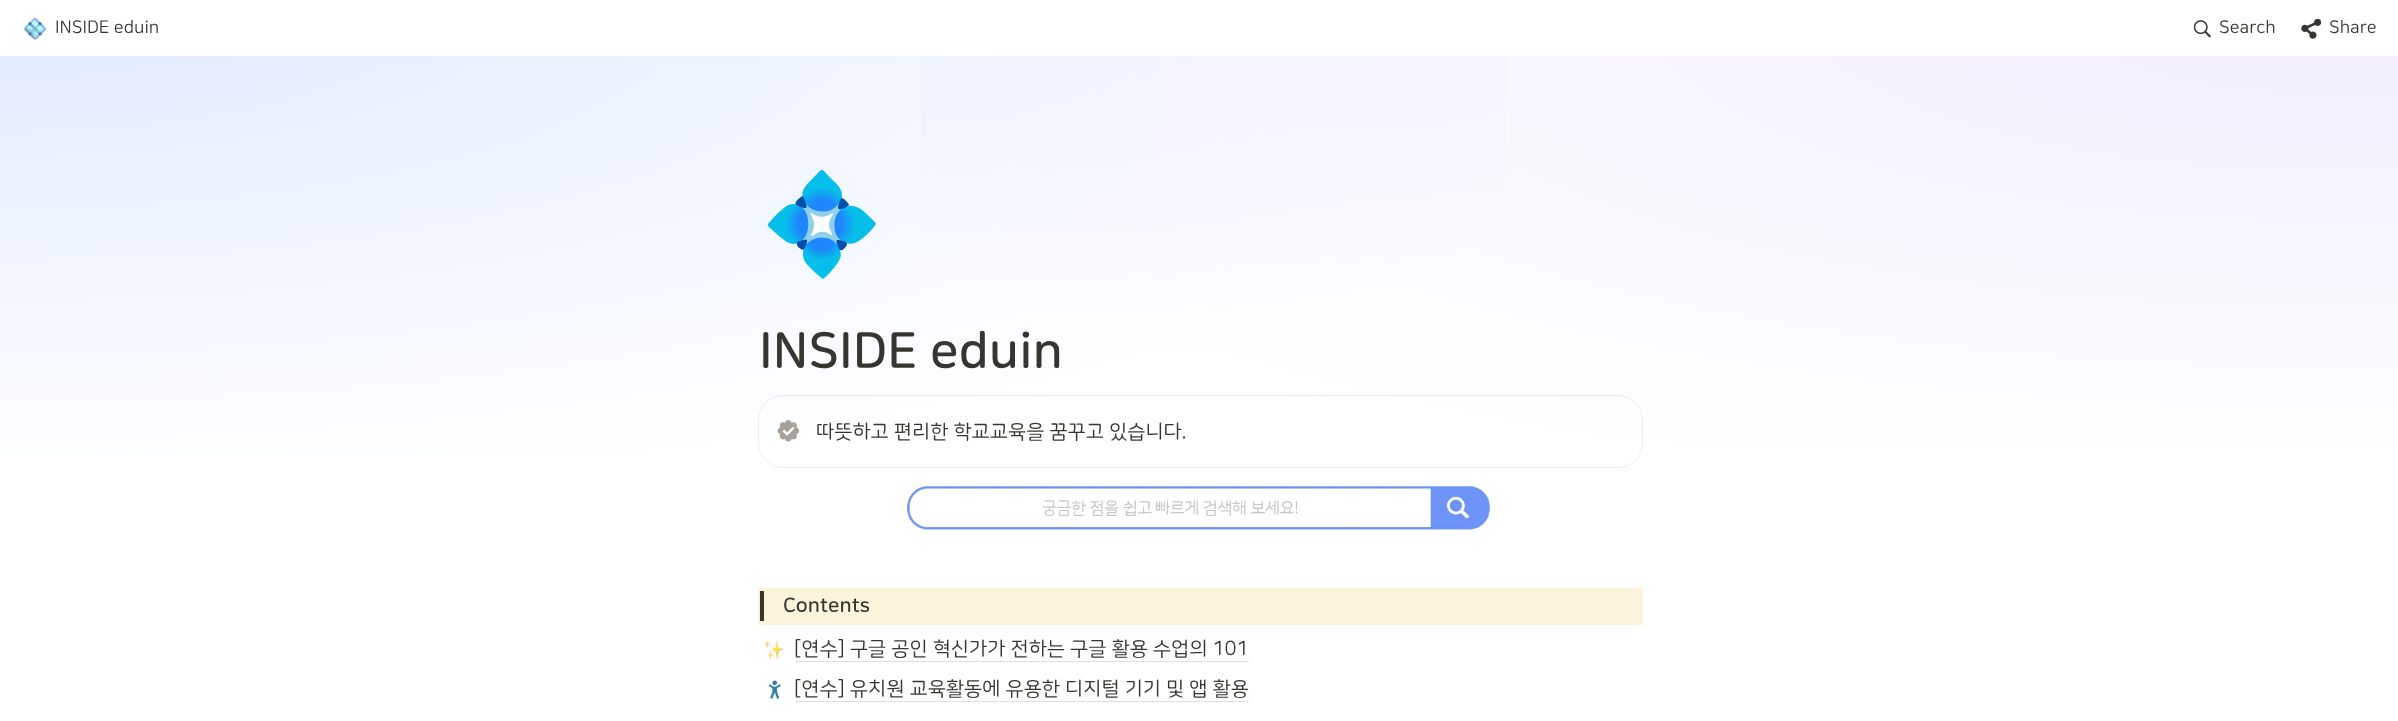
<svg xmlns="http://www.w3.org/2000/svg" xmlns:xlink="http://www.w3.org/1999/xlink" width="2398" height="721" viewBox="0 0 2398 721">
<style>
.cls-1{font:17.5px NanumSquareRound;fill:#37352f}
.cls-2{font:98px Noto Color Emoji;fill:#000000}
.cls-3{font:bold 50px NanumSquareRound;fill:#37352f}
.cls-4{font:20px NanumSquareRound;fill:#37352f}
.cls-5{font:bold 20px NanumSquareRound;fill:#37352f}
</style>
<defs>
<radialGradient id="g1" gradientUnits="userSpaceOnUse" cx="0" cy="0" r="1" gradientTransform="matrix(3324 0 0 1010 2351 7.2)"><stop offset="0" stop-color="#f1ecfd"/><stop offset="0.5" stop-color="#ffffff"/></radialGradient>
<radialGradient id="g2" gradientUnits="userSpaceOnUse" cx="0" cy="0" r="1" gradientTransform="matrix(3392 0 0 1020 0 0)"><stop offset="0" stop-color="#6196ff" stop-opacity="0.2"/><stop offset="0.5" stop-color="#6196ff" stop-opacity="0"/></radialGradient>
</defs>
<rect width="100%" height="100%" fill="#ffffff"/>
<rect fill="url(#g1)" x="921" y="56" width="1477" height="390"/>
<rect fill="url(#g2)" x="0" y="56" width="1506" height="399"/>
<image xlink:href="image0.png" x="23" y="18" width="23" height="22"/>
<image xlink:href="image1.png" x="2194" y="20" width="17" height="18"/>
<image xlink:href="image2.png" x="2301" y="19" width="20" height="20"/>
<rect fill="none" stroke="#37352f" stroke-opacity="0.09" x="758.5" y="395.5" width="884" height="72" rx="24.5"/>
<image xlink:href="image3.png" x="777" y="420" width="23" height="22"/>
<image xlink:href="image4.png" x="907" y="485" width="583" height="45"/>
<rect fill="#fbf3db" x="758" y="588" width="885" height="37"/>
<rect fill="#37352f" x="760" y="591" width="4" height="30"/>
<image xlink:href="image5.png" x="764" y="639" width="21" height="21"/>
<rect fill="#dfdfde" x="795" y="661" width="454" height="1"/>
<image xlink:href="image6.png" x="768" y="680" width="13" height="19"/>
<rect fill="#dfdfde" x="795" y="701" width="454" height="1"/>
<text class="cls-1" x="55" y="33">INSIDE eduin</text>
<text class="cls-1" x="2219" y="33">Search</text>
<text class="cls-1" x="2329" y="33">Share</text>
<text class="cls-2" x="761" y="258">💠</text>
<text class="cls-3" x="759" y="368">INSIDE eduin</text>
<text class="cls-4" x="816" y="438">따뜻하고 편리한 학교교육을 꿈꾸고 있습니다.</text>
<text class="cls-5" x="783" y="612">Contents</text>
<text class="cls-4" x="794" y="655">[연수] 구글 공인 혁신가가 전하는 구글 활용 수업의 101</text>
<text class="cls-4" x="794" y="695">[연수] 유치원 교육활동에 유용한 디지털 기기 및 앱 활용</text>
</svg>
